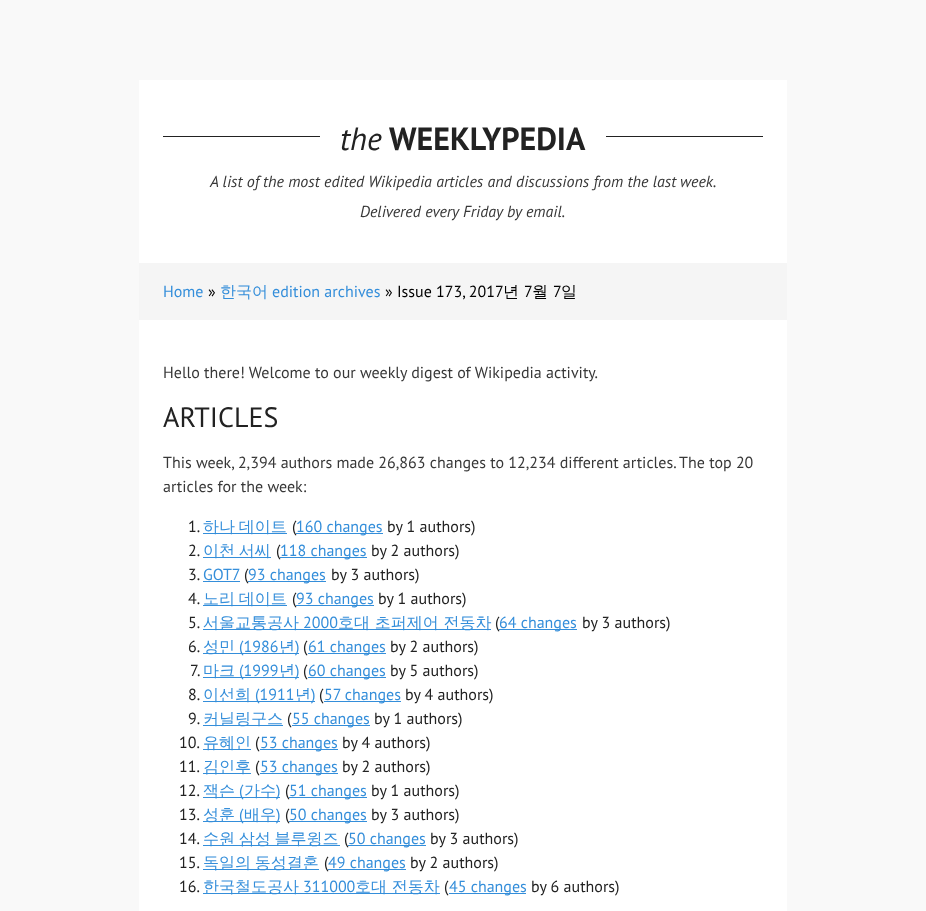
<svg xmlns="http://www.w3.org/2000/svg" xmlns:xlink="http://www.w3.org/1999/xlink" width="926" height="911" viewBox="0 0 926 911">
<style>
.cls-1{font:italic 32px PT Sans;fill:#222222}
.cls-2{font:bold 32px PT Sans;fill:#222222}
.cls-3{font:italic 16px PT Sans;fill:#383838}
.cls-4{font:16px PT Sans;fill:#348eda}
.cls-5{font:16px PT Sans;fill:#000000}
.cls-6{font:500 16px WenQuanYi Zen Hei;fill:#348eda}
.cls-7{font:500 16px WenQuanYi Zen Hei;fill:#000000}
.cls-8{font:16px PT Sans;fill:#383838}
.cls-9{font:28px PT Sans;fill:#222222}
.cls-10{font:16px PT Sans;fill:#222222}
</style>
<rect width="100%" height="100%" fill="#f9f9f9"/>
<rect fill="#ffffff" x="139" y="80" width="648" height="183"/>
<rect fill="#222222" x="163" y="136" width="600" height="1"/>
<rect fill="#ffffff" x="320" y="136" width="286" height="1"/>
<rect fill="#f5f5f5" x="139" y="263" width="648" height="57"/>
<rect fill="#ffffff" x="139" y="320" width="648" height="591"/>
<rect fill="#348eda" x="203" y="533" width="84" height="1"/>
<rect fill="#348eda" x="296" y="533" width="87" height="1"/>
<rect fill="#348eda" x="203" y="557" width="68" height="1"/>
<rect fill="#348eda" x="280" y="557" width="87" height="1"/>
<rect fill="#348eda" x="203" y="581" width="37" height="1"/>
<rect fill="#348eda" x="203" y="605" width="84" height="1"/>
<rect fill="#348eda" x="296" y="605" width="78" height="1"/>
<rect fill="#348eda" x="203" y="629" width="288" height="1"/>
<rect fill="#348eda" x="203" y="653" width="96" height="1"/>
<rect fill="#348eda" x="308" y="653" width="78" height="1"/>
<rect fill="#348eda" x="203" y="677" width="96" height="1"/>
<rect fill="#348eda" x="308" y="677" width="78" height="1"/>
<rect fill="#348eda" x="203" y="701" width="112" height="1"/>
<rect fill="#348eda" x="324" y="701" width="77" height="1"/>
<rect fill="#348eda" x="203" y="725" width="80" height="1"/>
<rect fill="#348eda" x="292" y="725" width="78" height="1"/>
<rect fill="#348eda" x="203" y="749" width="48" height="1"/>
<rect fill="#348eda" x="260" y="749" width="78" height="1"/>
<rect fill="#348eda" x="203" y="773" width="48" height="1"/>
<rect fill="#348eda" x="260" y="773" width="78" height="1"/>
<rect fill="#348eda" x="203" y="797" width="77" height="1"/>
<rect fill="#348eda" x="289" y="797" width="78" height="1"/>
<rect fill="#348eda" x="203" y="821" width="77" height="1"/>
<rect fill="#348eda" x="289" y="821" width="78" height="1"/>
<rect fill="#348eda" x="203" y="845" width="137" height="1"/>
<rect fill="#348eda" x="203" y="869" width="116" height="1"/>
<rect fill="#348eda" x="328" y="869" width="78" height="1"/>
<rect fill="#348eda" x="203" y="893" width="237" height="1"/>
<rect fill="#348eda" x="449" y="893" width="77" height="1"/>
<text class="cls-1" x="340" y="150">the</text>
<text class="cls-2" x="389" y="150">WEEKLYPEDIA</text>
<text class="cls-3" x="210" y="187">A list of the most edited Wikipedia articles and discussions from the last week.</text>
<text class="cls-3" x="360" y="217">Delivered every Friday by email.</text>
<text class="cls-4" x="163" y="297">Home</text>
<text class="cls-5" x="208" y="297">»</text>
<text class="cls-6" x="220" y="297">한국어</text>
<text class="cls-4" x="272" y="297">edition archives</text>
<text class="cls-5" x="385" y="297">» Issue 173, 2017</text>
<text class="cls-7" x="503" y="297">년</text>
<text class="cls-5" x="524" y="297">7</text>
<text class="cls-7" x="532" y="297">월</text>
<text class="cls-5" x="553" y="297">7</text>
<text class="cls-7" x="561" y="297">일</text>
<text class="cls-8" x="163" y="378">Hello there! Welcome to our weekly digest of Wikipedia activity.</text>
<text class="cls-9" x="163" y="427">ARTICLES</text>
<text class="cls-8"><tspan x="163" y="468">This week, 2,394 authors made 26,863 changes to 12,234 different articles. The top 20</tspan><tspan x="163" y="492">articles for the week:</tspan></text>
<text class="cls-10" x="188" y="532">1.</text>
<text class="cls-6" x="203" y="532" word-spacing="-1">하나 데이트</text>
<text class="cls-10" x="292" y="532">(</text>
<text class="cls-4" x="296" y="532">160 changes</text>
<text class="cls-10" x="387" y="532">by 1 authors)</text>
<text class="cls-10" x="188" y="556">2.</text>
<text class="cls-6" x="203" y="556" word-spacing="-1">이천 서씨</text>
<text class="cls-10" x="276" y="556">(</text>
<text class="cls-4" x="280" y="556">118 changes</text>
<text class="cls-10" x="371" y="556">by 2 authors)</text>
<text class="cls-10" x="188" y="580">3.</text>
<text class="cls-4" x="203" y="580">GOT7</text>
<text class="cls-10" x="244" y="580">(</text>
<rect fill="#348eda" x="248" y="581" width="78" height="1"/>
<text class="cls-4" x="248" y="580">93 changes</text>
<text class="cls-10" x="331" y="580">by 3 authors)</text>
<text class="cls-10" x="188" y="604">4.</text>
<text class="cls-6" x="203" y="604" word-spacing="-1">노리 데이트</text>
<text class="cls-10" x="292" y="604">(</text>
<text class="cls-4" x="296" y="604">93 changes</text>
<text class="cls-10" x="378" y="604">by 1 authors)</text>
<text class="cls-10" x="188" y="628">5.</text>
<text class="cls-6" x="203" y="628">서울교통공사</text>
<text class="cls-4" x="303" y="628">2000</text>
<text class="cls-6" x="338" y="628">호대 초퍼제어 전동차</text>
<text class="cls-10" x="495" y="628">(</text>
<rect fill="#348eda" x="499" y="629" width="78" height="1"/>
<text class="cls-4" x="499" y="628">64 changes</text>
<text class="cls-10" x="582" y="628">by 3 authors)</text>
<text class="cls-10" x="188" y="652">6.</text>
<text class="cls-6" x="203" y="652">성민</text>
<text class="cls-4" x="239" y="652">(1986</text>
<text class="cls-6" x="279" y="652">년</text>
<text class="cls-4" x="295" y="652">)</text>
<text class="cls-10" x="303" y="652">(</text>
<text class="cls-4" x="308" y="652">61 changes</text>
<text class="cls-10" x="390" y="652">by 2 authors)</text>
<text class="cls-10" x="190" y="676">7.</text>
<text class="cls-6" x="203" y="676">마크</text>
<text class="cls-4" x="239" y="676">(1999</text>
<text class="cls-6" x="279" y="676">년</text>
<text class="cls-4" x="295" y="676">)</text>
<text class="cls-10" x="303" y="676">(</text>
<text class="cls-4" x="308" y="676">60 changes</text>
<text class="cls-10" x="390" y="676">by 5 authors)</text>
<text class="cls-10" x="188" y="700">8.</text>
<text class="cls-6" x="203" y="700">이선희</text>
<text class="cls-4" x="255" y="700">(1911</text>
<text class="cls-6" x="295" y="700">년</text>
<text class="cls-4" x="311" y="700">)</text>
<text class="cls-10" x="319" y="700">(</text>
<text class="cls-4" x="324" y="700">57 changes</text>
<text class="cls-10" x="405" y="700">by 4 authors)</text>
<text class="cls-10" x="188" y="724">9.</text>
<text class="cls-6" x="203" y="724">커닐링구스</text>
<text class="cls-10" x="287" y="724">(</text>
<text class="cls-4" x="292" y="724">55 changes</text>
<text class="cls-10" x="374" y="724">by 1 authors)</text>
<text class="cls-10" x="179" y="748">10.</text>
<text class="cls-6" x="203" y="748">유혜인</text>
<text class="cls-10" x="255" y="748">(</text>
<text class="cls-4" x="260" y="748">53 changes</text>
<text class="cls-10" x="342" y="748">by 4 authors)</text>
<text class="cls-10" x="179" y="772">11.</text>
<text class="cls-6" x="203" y="772">김인후</text>
<text class="cls-10" x="255" y="772">(</text>
<text class="cls-4" x="260" y="772">53 changes</text>
<text class="cls-10" x="342" y="772">by 2 authors)</text>
<text class="cls-10" x="179" y="796">12.</text>
<text class="cls-6" x="203" y="796">잭슨</text>
<text class="cls-4" x="239" y="796">(</text>
<text class="cls-6" x="244" y="796">가수</text>
<text class="cls-4" x="276" y="796">)</text>
<text class="cls-10" x="285" y="796">(</text>
<text class="cls-4" x="289" y="796">51 changes</text>
<text class="cls-10" x="371" y="796">by 1 authors)</text>
<text class="cls-10" x="179" y="820">13.</text>
<text class="cls-6" x="203" y="820">성훈</text>
<text class="cls-4" x="239" y="820">(</text>
<text class="cls-6" x="244" y="820">배우</text>
<text class="cls-4" x="276" y="820">)</text>
<text class="cls-10" x="285" y="820">(</text>
<text class="cls-4" x="289" y="820">50 changes</text>
<text class="cls-10" x="371" y="820">by 3 authors)</text>
<text class="cls-10" x="179" y="844">14.</text>
<text class="cls-6" x="203" y="844" word-spacing="-1">수원 삼성 블루윙즈</text>
<text class="cls-10" x="344" y="844">(</text>
<rect fill="#348eda" x="348" y="845" width="78" height="1"/>
<text class="cls-4" x="348" y="844">50 changes</text>
<text class="cls-10" x="430" y="844">by 3 authors)</text>
<text class="cls-10" x="179" y="868">15.</text>
<text class="cls-6" x="203" y="868" word-spacing="-1">독일의 동성결혼</text>
<text class="cls-10" x="324" y="868">(</text>
<text class="cls-4" x="328" y="868">49 changes</text>
<text class="cls-10" x="410" y="868">by 2 authors)</text>
<text class="cls-10" x="179" y="892">16.</text>
<text class="cls-6" x="203" y="892">한국철도공사</text>
<text class="cls-4" x="303" y="892">311000</text>
<text class="cls-6" x="355" y="892">호대 전동차</text>
<text class="cls-10" x="444" y="892">(</text>
<text class="cls-4" x="449" y="892">45 changes</text>
<text class="cls-10" x="531" y="892">by 6 authors)</text>
</svg>
